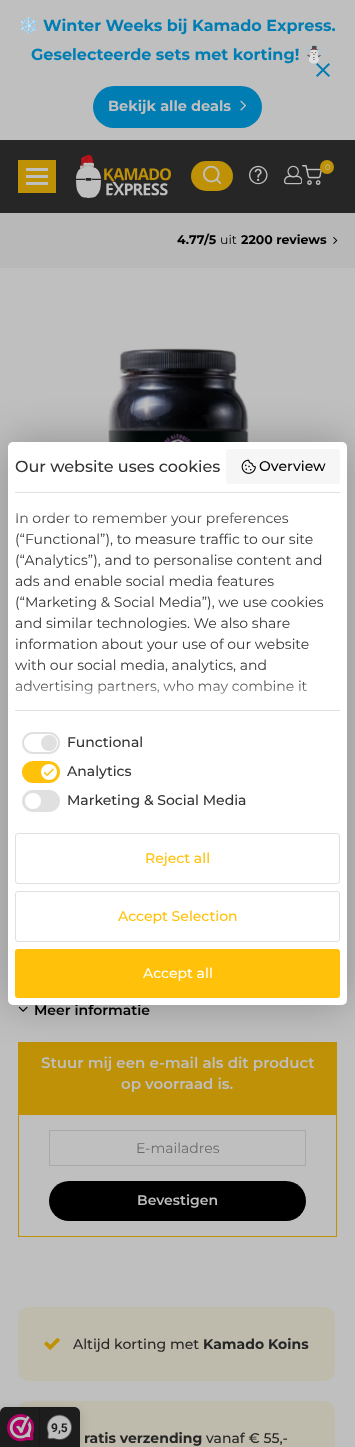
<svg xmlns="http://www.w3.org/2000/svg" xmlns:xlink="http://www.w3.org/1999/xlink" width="355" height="1447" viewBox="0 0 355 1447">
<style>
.cls-1{font:bold 16px Noto Color Emoji;fill:#007db2}
.cls-2{font:bold 16px Montserrat;fill:#007db2}
.cls-3{font:bold 14.5px Montserrat;fill:#bfbfbf}
.cls-4{font:8px Montserrat;fill:#bfbfbf}
.cls-5{font:bold 12.5px Montserrat;fill:#000000}
.cls-6{font:12.5px Montserrat;fill:#000000}
.cls-7{font:600 14px Montserrat;fill:#000000}
.cls-8{font:600 15px Montserrat;fill:#bfbfbf}
.cls-9{font:14px Montserrat;fill:#6c6c6c}
.cls-10{font:600 14px Montserrat;fill:#bfbfbf}
.cls-11{font:500 14px Montserrat;fill:#262626}
.cls-12{font:bold 14px Montserrat;fill:#262626}
.cls-13{font:500 16px Montserrat;fill:#333333}
.cls-14{font:500 14px Montserrat;fill:#000000}
.cls-15{font:14px Montserrat;fill:#333333}
.cls-16{font:500 14px Montserrat;fill:#333333}
.cls-17{font:500 14px Montserrat;fill:#ffc109}
.cls-18{font:500 14px Montserrat;fill:#ffffff}
.cls-19{font:bold 12px Roboto;fill:#1d1d1d}
</style>
<defs>
<linearGradient id="g1" gradientUnits="userSpaceOnUse" x1="178" y1="522" x2="178" y2="492"><stop offset="0" stop-color="#ffffff" stop-opacity="0"/><stop offset="1" stop-color="#ffffff"/></linearGradient>
<linearGradient id="g2" gradientUnits="userSpaceOnUse" x1="178" y1="680" x2="178" y2="710"><stop offset="0" stop-color="#ffffff" stop-opacity="0"/><stop offset="1" stop-color="#ffffff"/></linearGradient>
</defs>
<rect width="100%" height="100%" fill="#bfbfbf"/>
<rect fill="#007db2" x="93" y="86" width="169" height="42" rx="21"/>
<image xlink:href="image0.png" x="240" y="100" width="7" height="11"/>
<rect fill="#262626" x="0" y="140" width="355" height="73"/>
<rect fill="#bf9107" x="18" y="160" width="38" height="33"/>
<rect fill="#bfbfbf" x="26" y="175" width="22" height="3"/>
<rect fill="#bfbfbf" x="26" y="168" width="22" height="3"/>
<rect fill="#bfbfbf" x="26" y="182" width="22" height="3"/>
<image xlink:href="image2.png" x="76" y="155" width="95" height="43"/>
<rect fill="#bf9107" x="191" y="161" width="42" height="30" rx="15"/>
<image xlink:href="image3.png" x="203" y="165" width="18" height="20"/>
<image xlink:href="image4.png" x="249" y="165" width="19" height="20"/>
<image xlink:href="image5.png" x="284" y="165" width="18" height="20"/>
<image xlink:href="image6.png" x="302" y="165" width="20" height="20"/>
<circle fill="#bf9107" cx="327" cy="167" r="7"/>
<rect fill="#b8b8b8" x="0" y="213" width="355" height="55"/>
<image xlink:href="image7.png" x="333" y="237" width="5" height="7"/>
<image xlink:href="image8.png" x="108" y="348" width="142" height="94"/>
<image xlink:href="image9.png" x="18" y="1006" width="10" height="6"/>
<rect fill="none" stroke="#bf9107" x="18.5" y="1042.5" width="318" height="194"/>
<rect fill="#bf9107" x="19" y="1043" width="317" height="72"/>
<rect fill="none" stroke="#a8a8a8" x="49.5" y="1130.5" width="256" height="35"/>
<rect fill="#000000" x="49" y="1181" width="257" height="40" rx="20"/>
<rect fill="#bfbbac" x="18" y="1307" width="317" height="74" rx="10"/>
<image xlink:href="image10.png" x="44" y="1337" width="16" height="13"/>
<rect fill="#bfbbac" x="18" y="1401" width="317" height="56" rx="10"/>
<rect fill="#000000" fill-opacity="0.25" filter="blur(20px)" x="8" y="442" width="339" height="563" rx="5"/>
<rect fill="#000000" fill-opacity="0.15" filter="blur(5px)" x="0" y="1409" width="80" height="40" rx="6"/>
<path fill="#1d1d1d" d="M6 1407H74C77.5 1407 80 1409.5 80 1413V1447H0V1413C0 1409.5 2.5 1407 6 1407Z"/>
<image xlink:href="image13.png" x="7" y="1414" width="27" height="28"/>
<rect fill="#191818" x="39" y="1408" width="1" height="39"/>
<image xlink:href="image14.png" x="46" y="1414" width="26" height="26"/>
<text class="cls-1" x="19" y="31">❄️</text>
<text class="cls-2" x="43" y="31">Winter Weeks bij Kamado Express.</text>
<text class="cls-2" x="31" y="60">Geselecteerde sets met korting!</text>
<text class="cls-1" x="304" y="60">☃️</text>
<text class="cls-3" x="108" y="111">Bekijk alle deals</text>
<image xlink:href="image1.png" x="316" y="63" width="14" height="14"/>
<text class="cls-4" x="325" y="170">0</text>
<text class="cls-5" x="177" y="244">4.77/5</text>
<text class="cls-6" x="220" y="244">uit</text>
<text class="cls-5" x="241" y="244">2200 reviews</text>
<text class="cls-7" x="34" y="1015">Meer informatie</text>
<text class="cls-8" x="41" y="1068">Stuur mij een e-mail als dit product</text>
<text class="cls-8" x="121" y="1089">op voorraad is.</text>
<text class="cls-9" x="136" y="1153">E-mailadres</text>
<text class="cls-10" x="137" y="1205">Bevestigen</text>
<text class="cls-11" x="73" y="1349">Altijd korting met</text>
<text class="cls-12" x="203" y="1349">Kamado Koins</text>
<text class="cls-12" x="84" y="1443">ratis verzending</text>
<text class="cls-11" x="206" y="1443">vanaf € 55,-</text>
<rect fill="#ffffff" x="8" y="442" width="339" height="563" rx="5"/>
<text class="cls-13" x="15" y="472">Our website uses cookies</text>
<rect fill="#f6f6f6" x="226" y="449" width="114" height="35" rx="3"/>
<image xlink:href="image11.png" x="241" y="459" width="15" height="15"/>
<text class="cls-14" x="259" y="471">Overview</text>
<rect fill="#e0e0e0" x="15" y="492" width="325" height="1"/>
<rect fill="#e0e0e0" x="15" y="710" width="325" height="1"/>
<text class="cls-15"><tspan x="15" y="523">In order to remember your preferences</tspan><tspan x="15" y="544">(“Functional”), to measure traffic to our site</tspan><tspan x="15" y="565">(“Analytics”), and to personalise content and</tspan><tspan x="15" y="586">ads and enable social media features</tspan><tspan x="15" y="607">(“Marketing &amp; Social Media”), we use cookies</tspan><tspan x="15" y="628">and similar technologies. We also share</tspan><tspan x="15" y="649">information about your use of our website</tspan><tspan x="15" y="670">with our social media, analytics, and</tspan><tspan x="15" y="691">advertising partners, who may combine it</tspan></text>
<rect fill="url(#g1)" x="16" y="512" width="272" height="9"/>
<rect fill="url(#g2)" x="15" y="681" width="292" height="13"/>
<rect fill="none" stroke="#e0e0e0" stroke-width="2" x="23" y="733" width="36" height="20" rx="10"/>
<circle fill="#e0e0e0" cx="49" cy="743" r="8"/>
<text class="cls-16" x="67" y="747">Functional</text>
<rect fill="#ffc109" stroke="#ffc109" stroke-width="2" x="23" y="762" width="36" height="20" rx="10"/>
<circle fill="#ffffff" cx="49" cy="772" r="8"/>
<image xlink:href="image12.png" x="43" y="768" width="11" height="8"/>
<text class="cls-16" x="67" y="776">Analytics</text>
<rect fill="#e0e0e0" stroke="#e0e0e0" stroke-width="2" x="23" y="791" width="36" height="20" rx="10"/>
<circle fill="#ffffff" cx="33" cy="801" r="8"/>
<text class="cls-16" x="67" y="805">Marketing &amp; Social Media</text>
<rect fill="none" stroke="#e0e0e0" x="15.5" y="833.5" width="324" height="50" rx="2.5"/>
<text class="cls-17" x="145" y="863">Reject all</text>
<rect fill="none" stroke="#e0e0e0" x="15.5" y="891.5" width="324" height="50" rx="2.5"/>
<text class="cls-17" x="118" y="921">Accept Selection</text>
<rect fill="#ffc109" x="15" y="949" width="325" height="49" rx="3"/>
<text class="cls-18" x="143" y="978">Accept all</text>
<text class="cls-19" x="51" y="1432">9,5</text>
</svg>
